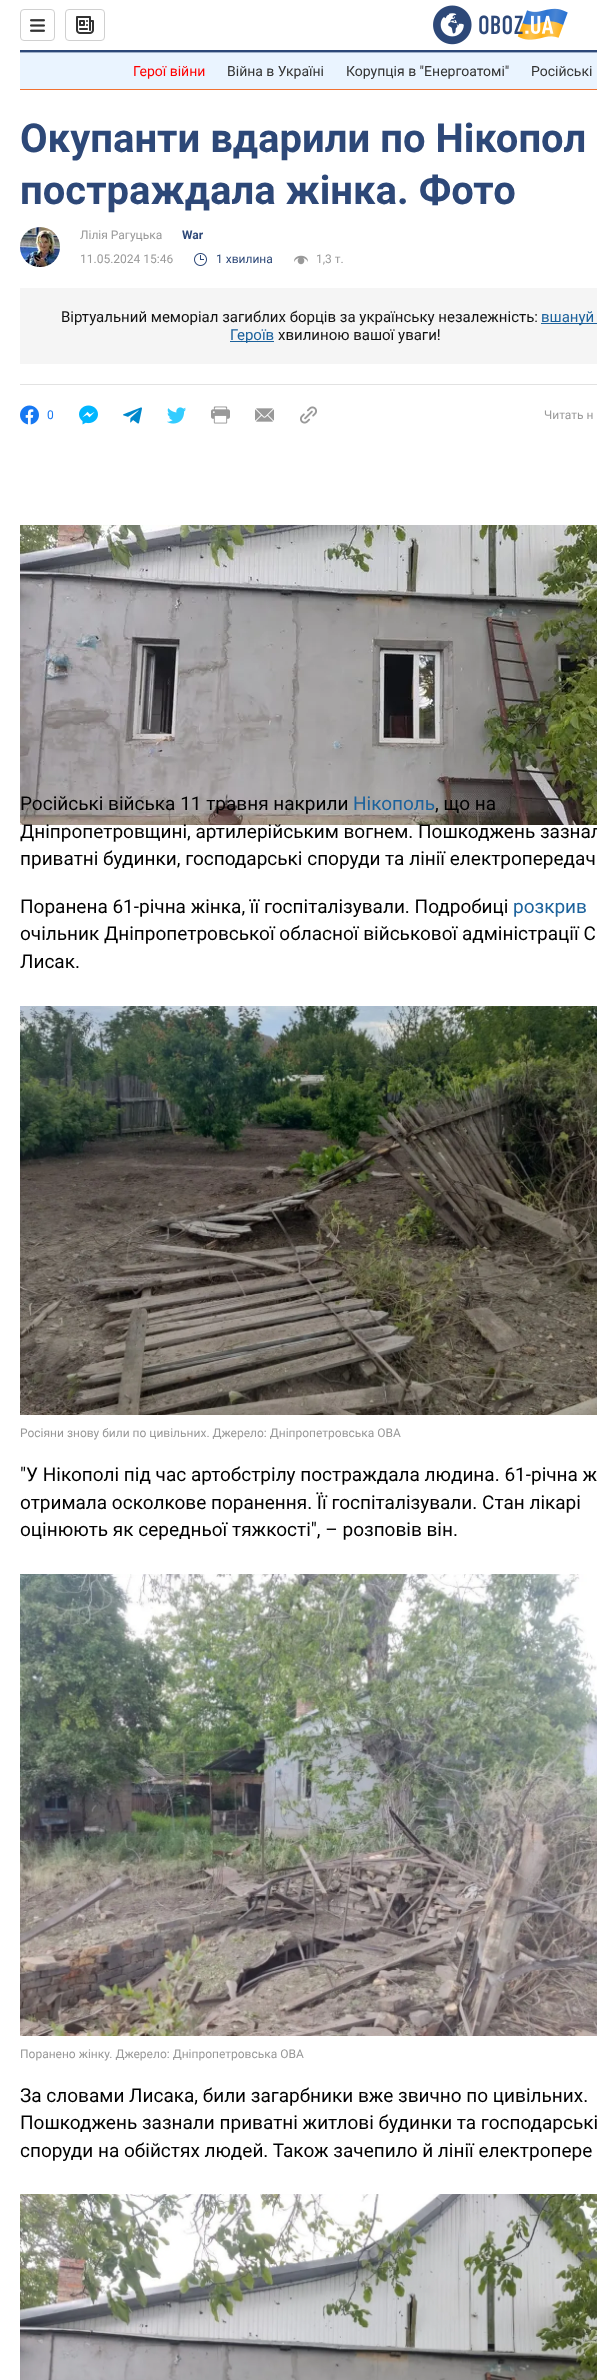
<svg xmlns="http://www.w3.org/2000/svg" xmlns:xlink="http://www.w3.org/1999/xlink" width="597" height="2380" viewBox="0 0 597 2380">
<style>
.cls-1{font:14px Roboto;fill:#ff0000}
.cls-2{font:14px Roboto;fill:#333333}
.cls-3{font:bold 40px Roboto;fill:#2d4878}
.cls-4{font:12px Roboto;fill:#999999}
.cls-5{font:bold 12px Roboto;fill:#2d4878}
.cls-6{font:12px Roboto;fill:#2d4878}
.cls-7{font:15px Roboto;fill:#121212}
.cls-8{font:15px Roboto;fill:#1c629c}
.cls-9{font:12px Roboto;fill:#1778f2}
.cls-10{font:19px Roboto;fill:#000000}
.cls-11{font:19px Roboto;fill:#1c629c}
</style>
<rect width="100%" height="100%" fill="#ffffff"/>
<rect fill="#2d4878" x="20" y="50" width="577" height="2"/>
<rect fill="none" stroke="#d0d0d0" x="20.5" y="9.5" width="34" height="31" rx="3.5"/>
<image xlink:href="image0.png" x="30" y="19" width="15" height="13"/>
<rect fill="none" stroke="#d0d0d0" x="65.5" y="9.5" width="39" height="31" rx="3.5"/>
<image xlink:href="image1.png" x="76" y="16" width="18" height="18"/>
<image xlink:href="image2.png" x="433" y="5" width="135" height="40"/>
<rect fill="#eaf4ff" x="20" y="53" width="577" height="36"/>
<rect fill="#9eafc9" x="20" y="52" width="577" height="1"/>
<rect fill="#f17132" x="20" y="89" width="577" height="1"/>
<rect fill="#e2e2e2" x="20" y="384" width="577" height="1"/>
<image xlink:href="image3.png" x="20" y="227" width="40" height="40"/>
<image xlink:href="image4.png" x="194" y="253" width="13" height="13"/>
<image xlink:href="image5.png" x="294" y="255" width="14" height="10"/>
<rect fill="#f5f5f5" x="20" y="288" width="577" height="76"/>
<rect fill="#1c629c" x="541" y="323" width="56" height="1"/>
<rect fill="#1c629c" x="230" y="341" width="44" height="1"/>
<image xlink:href="image6.png" x="20" y="405" width="19" height="20"/>
<image xlink:href="image7.png" x="79" y="405" width="19" height="20"/>
<image xlink:href="image8.png" x="123" y="407" width="19" height="17"/>
<image xlink:href="image9.png" x="167" y="407" width="19" height="17"/>
<image xlink:href="image10.png" x="211" y="406" width="19" height="18"/>
<image xlink:href="image11.png" x="255" y="408" width="19" height="14"/>
<image xlink:href="image12.png" x="300" y="406" width="17" height="18"/>
<image xlink:href="image13.png" x="20" y="525" width="577" height="300"/>
<image xlink:href="image14.png" x="20" y="1006" width="577" height="409"/>
<image xlink:href="image15.png" x="20" y="1574" width="577" height="462"/>
<image xlink:href="image16.png" x="20" y="2194" width="577" height="186"/>
<text class="cls-1" x="133" y="76">Герої війни</text>
<text class="cls-2" x="227" y="76">Війна в Україні</text>
<text class="cls-2" x="346" y="76">Корупція в "Енергоатомі"</text>
<text class="cls-2" x="531" y="76">Російські</text>
<text class="cls-3"><tspan x="20" y="152">Окупанти вдарили по Нікопол</tspan><tspan x="20" y="204">постраждала жінка. Фото</tspan></text>
<text class="cls-4" x="80" y="239">Лілія Рагуцька</text>
<text class="cls-5" x="182" y="239">War</text>
<text class="cls-4" x="80" y="263">11.05.2024 15:46</text>
<text class="cls-6" x="216" y="263">1 хвилина</text>
<text class="cls-4" x="316" y="263">1,3 т.</text>
<text class="cls-7" x="61" y="322">Віртуальний меморіал загиблих борців за українську незалежність:</text>
<text class="cls-8" x="541" y="322">вшануй</text>
<text class="cls-8" x="230" y="340">Героїв</text>
<text class="cls-7" x="278" y="340">хвилиною вашої уваги!</text>
<text class="cls-9" x="47" y="419">0</text>
<text class="cls-4" x="544" y="419">Читать н</text>
<text class="cls-10" x="20" y="810">Російські війська 11 травня накрили</text>
<text class="cls-11" x="353" y="810">Нікополь</text>
<text class="cls-10" x="435" y="810">, що на</text>
<text class="cls-10"><tspan x="20" y="838">Дніпропетровщині, артилерійським вогнем. Пошкоджень зазнал</tspan><tspan x="20" y="865">приватні будинки, господарські споруди та лінії електропередач</tspan></text>
<text class="cls-10" x="20" y="913">Поранена 61-річна жінка, її госпіталізували. Подробиці</text>
<text class="cls-11" x="513" y="913">розкрив</text>
<text class="cls-10"><tspan x="20" y="940">очільник Дніпропетровської обласної військової адміністрації С</tspan><tspan x="20" y="968">Лисак.</tspan></text>
<text class="cls-4" x="20" y="1437">Росіяни знову били по цивільних. Джерело: Дніпропетровська ОВА</text>
<text class="cls-10"><tspan x="20" y="1481">"У Нікополі під час артобстрілу постраждала людина. 61-річна ж</tspan><tspan x="20" y="1509">отримала осколкове поранення. Її госпіталізували. Стан лікарі</tspan><tspan x="20" y="1536">оцінюють як середньої тяжкості", – розповів він.</tspan></text>
<text class="cls-4" x="20" y="2058">Поранено жінку. Джерело: Дніпропетровська ОВА</text>
<text class="cls-10"><tspan x="20" y="2102">За словами Лисака, били загарбники вже звично по цивільних.</tspan><tspan x="20" y="2129">Пошкоджень зазнали приватні житлові будинки та господарські</tspan><tspan x="20" y="2157">споруди на обійстях людей. Також зачепило й лінії електропере</tspan></text>
</svg>
